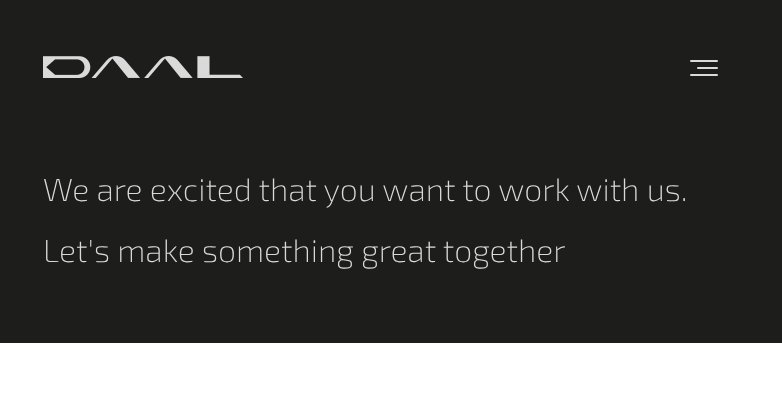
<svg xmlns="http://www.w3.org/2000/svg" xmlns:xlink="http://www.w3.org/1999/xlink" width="782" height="406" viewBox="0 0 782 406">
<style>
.cls-1{font:200 32px 'Exo 2';fill:#dadada}
</style>
<rect width="100%" height="100%" fill="#ffffff"/>
<rect fill="#1d1d1b" x="0" y="0" width="782" height="343"/>
<image xlink:href="image0.png" x="43" y="56" width="200" height="22"/>
<rect fill="#dadada" x="690" y="60" width="28" height="2" rx="1"/>
<rect fill="#dadada" x="697" y="67" width="21" height="2" rx="1"/>
<rect fill="#dadada" x="690" y="74" width="28" height="2" rx="1"/>
<text class="cls-1"><tspan x="43" y="201">We are excited that you want to work with us.</tspan><tspan x="43" y="262">Let's make something great together</tspan></text>
</svg>
